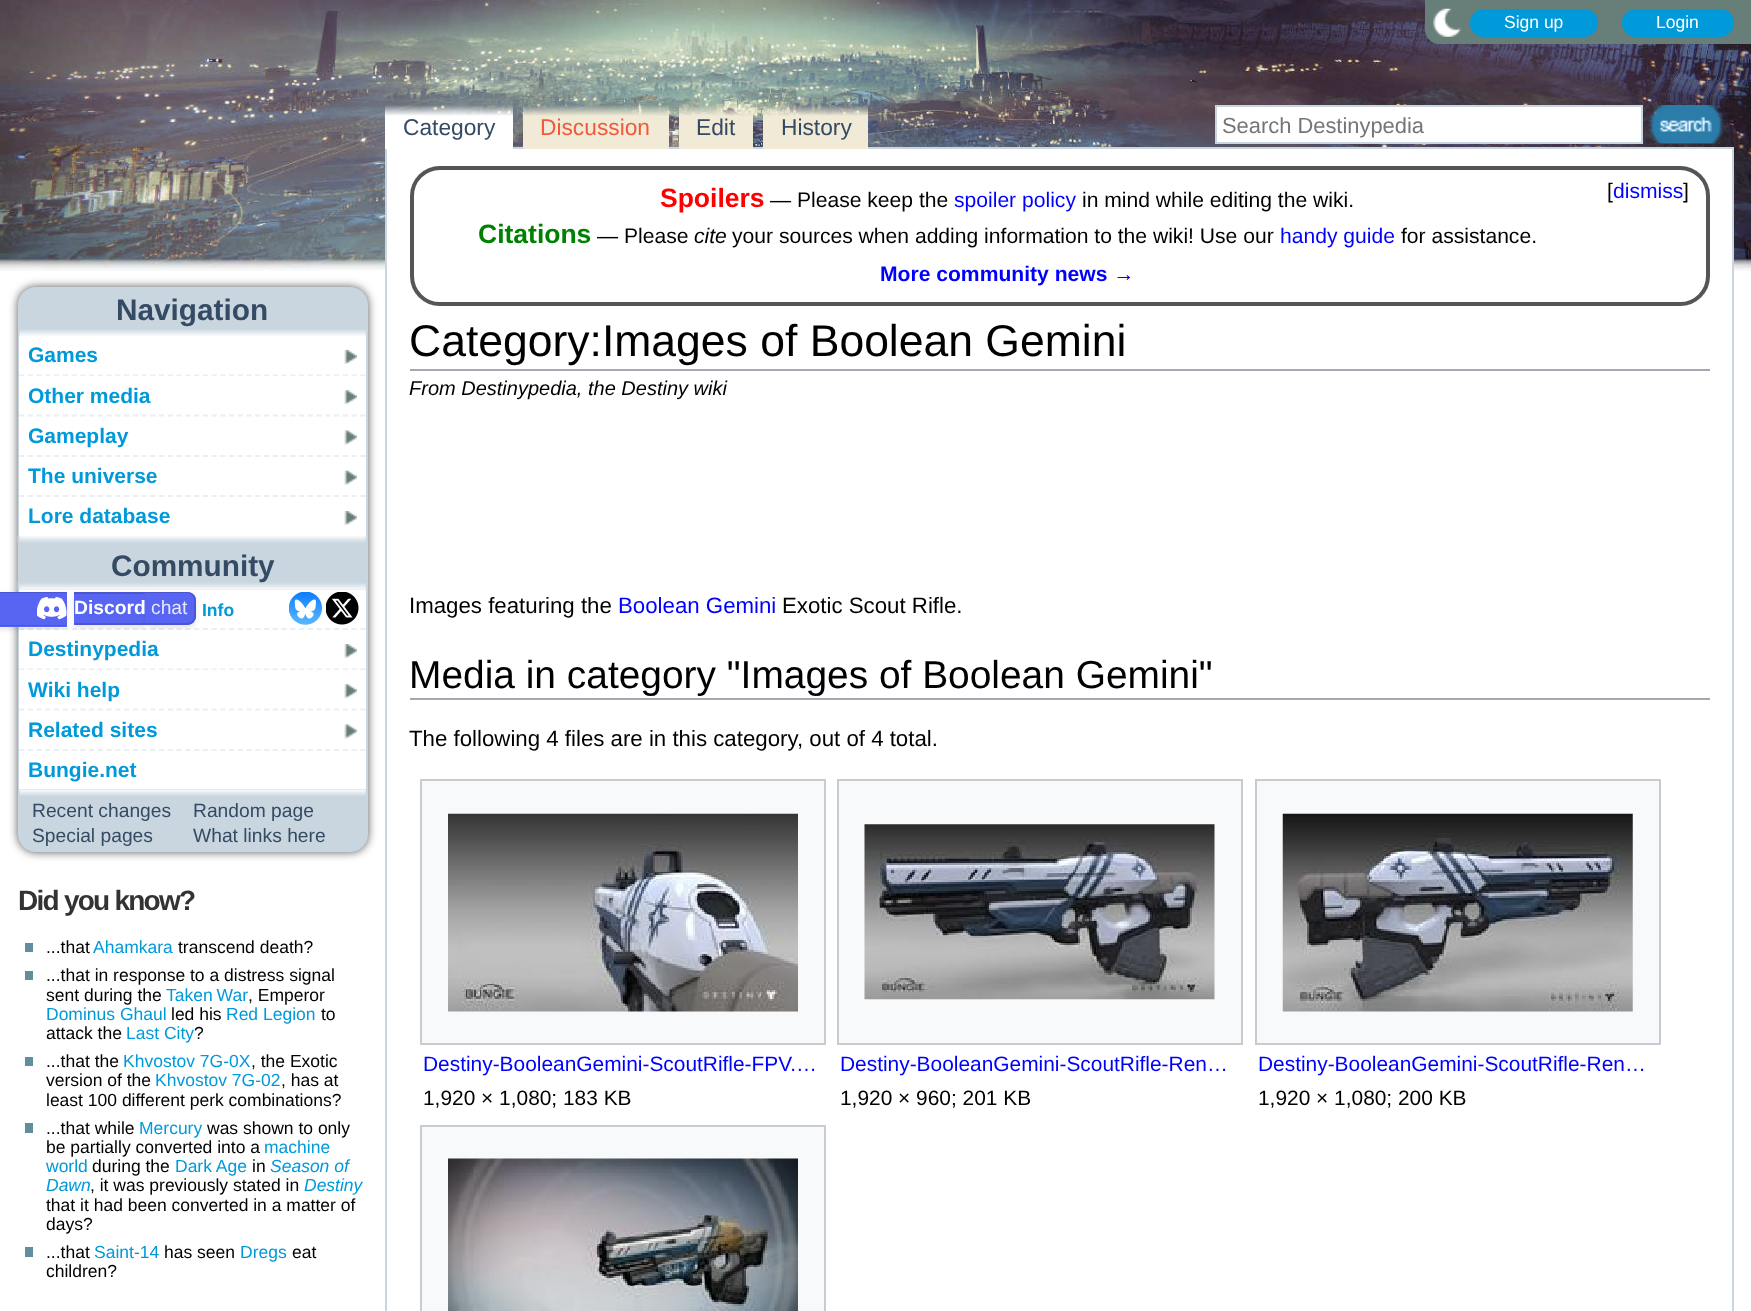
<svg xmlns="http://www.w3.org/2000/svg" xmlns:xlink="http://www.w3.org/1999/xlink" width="1751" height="1311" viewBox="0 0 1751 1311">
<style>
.cls-1{font:17.5px Liberation Sans;fill:#ffffff}
.cls-2{font:21.9px Liberation Sans;fill:#757575}
.cls-3{font:bold 29.75px Liberation Sans;fill:#344b63}
.cls-4{font:bold 21px Liberation Sans;fill:#0099d9}
.cls-5{font:bold 19.25px Liberation Sans;fill:#ffffff}
.cls-6{font:19.25px Liberation Sans;fill:#e6e8fd}
.cls-7{font:bold 17.5px Liberation Sans;fill:#0099d9}
.cls-8{font:19.25px Liberation Sans;fill:#344b63}
.cls-9{font:bold 28px Liberation Sans;letter-spacing:-1.75px;fill:#333333}
.cls-10{font:17.5px Liberation Sans;fill:#000000}
.cls-11{font:17.5px Liberation Sans;fill:#0099d9}
.cls-12{font:italic 17.5px Liberation Sans;fill:#0099d9}
.cls-13{font:22.75px Liberation Sans;fill:#344b63}
.cls-14{font:22.75px Liberation Sans;fill:#f15a3a}
.cls-15{font:bold 26.5px Liberation Sans;fill:#ff0000}
.cls-16{font:21.1px Liberation Sans;fill:#000000}
.cls-17{font:21.1px Liberation Sans;fill:#0000ff}
.cls-18{font:bold 26.5px Liberation Sans;fill:#008000}
.cls-19{font:italic 21.1px Liberation Sans;fill:#000000}
.cls-20{font:bold 21.1px Liberation Sans;fill:#0000ff}
.cls-21{font:44.5px Liberation Sans;fill:#000000}
.cls-22{font:italic 20px Liberation Sans;fill:#000000}
.cls-23{font:22.25px Liberation Sans;fill:#000000}
.cls-24{font:22.25px Liberation Sans;fill:#0000ff}
.cls-25{font:38.9px Liberation Sans;fill:#000000}
.cls-26{font:20.9px Liberation Sans;fill:#0000ff}
.cls-27{font:20.9px Liberation Sans;fill:#000000}
</style>
<defs>
<linearGradient id="g1" gradientUnits="userSpaceOnUse" x1="449" y1="149" x2="449" y2="105"><stop offset="0.75" stop-color="#ffffff"/><stop offset="1" stop-color="#ffffff" stop-opacity="0"/></linearGradient>
<linearGradient id="g2" gradientUnits="userSpaceOnUse" x1="596" y1="149" x2="596" y2="105"><stop offset="0.75" stop-color="#f0ead6"/><stop offset="1" stop-color="#f0ead6" stop-opacity="0"/></linearGradient>
<linearGradient id="g3" gradientUnits="userSpaceOnUse" x1="716" y1="149" x2="716" y2="105"><stop offset="0.75" stop-color="#f0ead6"/><stop offset="1" stop-color="#f0ead6" stop-opacity="0"/></linearGradient>
<linearGradient id="g4" gradientUnits="userSpaceOnUse" x1="816" y1="149" x2="816" y2="105"><stop offset="0.75" stop-color="#f0ead6"/><stop offset="1" stop-color="#f0ead6" stop-opacity="0"/></linearGradient>
</defs>
<rect width="100%" height="100%" fill="#ffffff"/>
<image xlink:href="image0.png" x="0" y="0" width="1751" height="271"/>
<path fill="#687f79" d="M1425 0H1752V44H1439C1431.5 44 1425 37.5 1425 30Z"/>
<image xlink:href="image1.png" x="1433" y="8" width="29" height="29"/>
<rect fill="#0099d9" x="1470" y="9" width="128" height="28" rx="14"/>
<rect fill="#0099d9" x="1622" y="9" width="112" height="28" rx="14"/>
<rect fill="#ffffff" stroke="#c9d6e0" stroke-width="2" x="1216" y="106" width="426" height="37"/>
<image xlink:href="image2.png" x="1645" y="105" width="78" height="39"/>
<rect fill="#555555" filter="blur(5px)" x="18" y="287" width="350" height="565" rx="18"/>
<path fill="#c9d6e0" d="M36 287H350C360 287 368 295 368 305V336H18V305C18 295 26 287 36 287Z"/>
<image xlink:href="image3.png" x="19" y="329" width="348" height="7"/>
<rect fill="#c9d6e0" x="366" y="336" width="2" height="200"/>
<rect fill="#c9d6e0" x="18" y="336" width="1" height="200"/>
<rect fill="#ffffff" x="19" y="336" width="347" height="40"/>
<path fill="none" stroke="#eaf0f1" stroke-width="1.8" stroke-dasharray="5.25 3.5" d="M19 375.5H366"/>
<image xlink:href="image4.png" x="344" y="350" width="13" height="14"/>
<rect fill="#c9d6e0" x="18" y="536" width="350" height="54"/>
<image xlink:href="image8.png" x="17" y="535" width="350" height="8"/>
<rect fill="#ffffff" x="19" y="376" width="347" height="160"/>
<path fill="none" stroke="#eaf0f1" stroke-width="1.8" stroke-dasharray="5.25 3.5" d="M19 415.5H366"/>
<image xlink:href="image5.png" x="344" y="390" width="13" height="15"/>
<path fill="none" stroke="#eaf0f1" stroke-width="1.8" stroke-dasharray="5.25 3.5" d="M19 456H366"/>
<image xlink:href="image6.png" x="344" y="430" width="13" height="15"/>
<path fill="none" stroke="#eaf0f1" stroke-width="1.8" stroke-dasharray="5.25 3.5" d="M19 496H366"/>
<image xlink:href="image7.png" x="344" y="470" width="13" height="15"/>
<image xlink:href="image4.png" x="344" y="511" width="13" height="14"/>
<image xlink:href="image9.png" x="17" y="581" width="350" height="9"/>
<rect fill="#c9d6e0" x="366" y="590" width="2" height="199"/>
<rect fill="#c9d6e0" x="18" y="590" width="1" height="199"/>
<rect fill="#ffffff" x="19" y="590" width="347" height="40"/>
<path fill="none" stroke="#eaf0f1" stroke-width="1.8" stroke-dasharray="5.25 3.5" d="M19 629H366"/>
<rect fill="#000000" fill-opacity="0.1" filter="blur(2.5px)" x="-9" y="595" width="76" height="35" rx="9"/>
<rect fill="#5865f2" x="0" y="592" width="67" height="35"/>
<path fill="#4b56d0" fill-rule="evenodd" d="M0 592H66V626H0C-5 626-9 623-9 618V600C-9 595-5 592 0 592ZM0 593H66V625H0C-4 625-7 622-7 618V600C-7 596-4 593 0 593Z"/>
<rect fill="#000000" fill-opacity="0.1" filter="blur(2.5px)" x="74" y="595" width="71" height="33"/>
<rect fill="#5865f2" x="74" y="594" width="71" height="29"/>
<rect fill="#4b56d0" x="74" y="592" width="71" height="2"/>
<rect fill="#4b56d0" x="74" y="623" width="71" height="2"/>
<rect fill="#000000" fill-opacity="0.1" filter="blur(2.5px)" x="145" y="595" width="51" height="33" rx="9"/>
<path fill="#5865f2" d="M145 592H187C192 592 196 596 196 601V616C196 621 192 625 187 625H145Z"/>
<path fill="#4b56d0" fill-rule="evenodd" d="M145 592H187C192 592 196 595 196 600V616C196 621 192 625 187 625H145ZM145 593H187C191 593 194 596 194 600V616C194 620 191 623 187 623H145Z"/>
<image xlink:href="image10.png" x="37" y="597" width="30" height="23"/>
<image xlink:href="image11.png" x="289" y="592" width="33" height="33"/>
<image xlink:href="image12.png" x="326" y="592" width="33" height="33"/>
<rect fill="#ffffff" x="19" y="630" width="347" height="40"/>
<path fill="none" stroke="#eaf0f1" stroke-width="1.8" stroke-dasharray="5.25 3.5" d="M19 669.5H366"/>
<image xlink:href="image4.png" x="344" y="644" width="13" height="14"/>
<rect fill="#ffffff" x="19" y="670" width="347" height="119"/>
<path fill="none" stroke="#eaf0f1" stroke-width="1.8" stroke-dasharray="5.25 3.5" d="M19 709.5H366"/>
<image xlink:href="image5.png" x="344" y="684" width="13" height="15"/>
<path fill="none" stroke="#eaf0f1" stroke-width="1.8" stroke-dasharray="5.25 3.5" d="M19 750H366"/>
<image xlink:href="image6.png" x="344" y="724" width="13" height="15"/>
<path fill="#c9d6e0" d="M18 789H368V834C368 844 360 852 350 852H36C26 852 18 844 18 834Z"/>
<image xlink:href="image13.png" x="19" y="789" width="348" height="7"/>
<rect fill="#638c9c" x="25" y="943" width="8" height="9"/>
<rect fill="#638c9c" x="25" y="971" width="8" height="9"/>
<rect fill="#638c9c" x="25" y="1057" width="8" height="9"/>
<rect fill="#638c9c" x="25" y="1123" width="8" height="10"/>
<rect fill="#638c9c" x="25" y="1247" width="8" height="10"/>
<rect fill="#ffffff" x="387" y="149" width="1345" height="122"/>
<rect fill="none" stroke="#c9d6e0" stroke-width="2" x="386" y="148" width="1347" height="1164"/>
<rect fill="url(#g1)" x="385" y="105" width="128" height="44"/>
<rect fill="url(#g2)" x="523" y="105" width="146" height="44"/>
<rect fill="url(#g3)" x="679" y="105" width="74" height="44"/>
<rect fill="url(#g4)" x="763" y="105" width="105" height="44"/>
<rect fill="none" stroke="#555555" stroke-width="4" x="412" y="168" width="1296" height="136" rx="28"/>
<rect fill="#a2a9b1" x="410" y="369" width="1300" height="2"/>
<rect fill="#a2a9b1" x="410" y="698" width="1300" height="2"/>
<rect fill="#f8f9fa" stroke="#c8ccd1" stroke-width="2" x="421" y="780" width="404" height="264"/>
<image xlink:href="image14.png" x="448" y="813" width="350" height="199"/>
<rect fill="#f8f9fa" stroke="#c8ccd1" stroke-width="2" x="838" y="780" width="404" height="264"/>
<image xlink:href="image15.png" x="864" y="824" width="351" height="176"/>
<rect fill="#f8f9fa" stroke="#c8ccd1" stroke-width="2" x="1256" y="780" width="404" height="264"/>
<image xlink:href="image16.png" x="1282" y="813" width="351" height="199"/>
<rect fill="#f8f9fa" stroke="#c8ccd1" stroke-width="2" x="421" y="1126" width="404" height="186"/>
<image xlink:href="image17.png" x="448" y="1158" width="350" height="153"/>
<text class="cls-1" x="1504" y="28">Sign up</text>
<text class="cls-1" x="1656" y="28">Login</text>
<text class="cls-2" x="1222" y="133">Search Destinypedia</text>
<text class="cls-3" x="116" y="320">Navigation</text>
<text class="cls-4"><tspan x="28" y="362">Games</tspan><tspan x="28" y="403">Other media</tspan><tspan x="28" y="443">Gameplay</tspan><tspan x="28" y="483">The universe</tspan><tspan x="28" y="523">Lore database</tspan></text>
<text class="cls-3" x="111" y="576">Community</text>
<text class="cls-5" x="74" y="614">Discord</text>
<text class="cls-6" x="151" y="614">chat</text>
<text class="cls-7" x="202" y="616">Info</text>
<text class="cls-4"><tspan x="28" y="656">Destinypedia</tspan><tspan x="28" y="697">Wiki help</tspan><tspan x="28" y="737">Related sites</tspan><tspan x="28" y="777">Bungie.net</tspan></text>
<text class="cls-8" x="32" y="817">Recent changes</text>
<text class="cls-8" x="193" y="817">Random page</text>
<text class="cls-8" x="32" y="842">Special pages</text>
<text class="cls-8" x="193" y="842">What links here</text>
<text class="cls-9" x="18" y="910">Did you know?</text>
<text class="cls-10" x="46" y="953">...that</text>
<text class="cls-11" x="93" y="953">Ahamkara</text>
<text class="cls-10" x="178" y="953">transcend death?</text>
<text class="cls-10"><tspan x="46" y="981">...that in response to a distress signal</tspan><tspan x="46" y="1001">sent during the</tspan></text>
<text class="cls-11" x="166" y="1001" word-spacing="-1">Taken War</text>
<text class="cls-10" x="248" y="1001">, Emperor</text>
<text class="cls-11" x="46" y="1020">Dominus Ghaul</text>
<text class="cls-10" x="171" y="1020">led his</text>
<text class="cls-11" x="226" y="1020">Red Legion</text>
<text class="cls-10" x="321" y="1020">to</text>
<text class="cls-10" x="46" y="1039">attack the</text>
<text class="cls-11" x="126" y="1039">Last City</text>
<text class="cls-10" x="194" y="1039">?</text>
<text class="cls-10" x="46" y="1067">...that the</text>
<text class="cls-11" x="123" y="1067">Khvostov 7G-0X</text>
<text class="cls-10" x="251" y="1067">, the Exotic</text>
<text class="cls-10" x="46" y="1086">version of the</text>
<text class="cls-11" x="155" y="1086">Khvostov 7G-02</text>
<text class="cls-10" x="281" y="1086">, has at</text>
<text class="cls-10"><tspan x="46" y="1106">least 100 different perk combinations?</tspan><tspan x="46" y="1134">...that while</tspan></text>
<text class="cls-11" x="139" y="1134">Mercury</text>
<text class="cls-10" x="207" y="1134">was shown to only</text>
<text class="cls-10" x="46" y="1153">be partially converted into a</text>
<text class="cls-11" x="264" y="1153">machine</text>
<text class="cls-11" x="46" y="1172">world</text>
<text class="cls-10" x="92" y="1172">during the</text>
<text class="cls-11" x="175" y="1172">Dark Age</text>
<text class="cls-10" x="252" y="1172">in</text>
<text class="cls-12" x="270" y="1172">Season of</text>
<text class="cls-12" x="46" y="1191">Dawn</text>
<text class="cls-10" x="90" y="1191">, it was previously stated in</text>
<text class="cls-12" x="304" y="1191">Destiny</text>
<text class="cls-10"><tspan x="46" y="1211">that it had been converted in a matter of</tspan><tspan x="46" y="1230">days?</tspan><tspan x="46" y="1258">...that</tspan></text>
<text class="cls-11" x="94" y="1258">Saint-14</text>
<text class="cls-10" x="164" y="1258">has seen</text>
<text class="cls-11" x="240" y="1258">Dregs</text>
<text class="cls-10" x="292" y="1258">eat</text>
<text class="cls-10" x="46" y="1277">children?</text>
<text class="cls-13" x="403" y="135">Category</text>
<text class="cls-14" x="540" y="135">Discussion</text>
<text class="cls-13" x="696" y="135">Edit</text>
<text class="cls-13" x="781" y="135">History</text>
<text class="cls-15" x="660" y="207">Spoilers</text>
<text class="cls-16" x="770" y="207">— Please keep the</text>
<text class="cls-17" x="954" y="207">spoiler policy</text>
<text class="cls-16" x="1082" y="207">in mind while editing the wiki.</text>
<text class="cls-18" x="478" y="243">Citations</text>
<text class="cls-16" x="597" y="243">— Please</text>
<text class="cls-19" x="694" y="243">cite</text>
<text class="cls-16" x="732" y="243">your sources when adding information to the wiki! Use our</text>
<text class="cls-17" x="1280" y="243">handy guide</text>
<text class="cls-16" x="1401" y="243">for assistance.</text>
<text class="cls-20" x="880" y="281">More community news →</text>
<text class="cls-16" x="1607" y="198">[</text>
<text class="cls-17" x="1613" y="198">dismiss</text>
<text class="cls-16" x="1683" y="198">]</text>
<text class="cls-21" x="409" y="356">Category:Images of Boolean Gemini</text>
<text class="cls-22" x="409" y="395">From Destinypedia, the Destiny wiki</text>
<text class="cls-23" x="409" y="613">Images featuring the</text>
<text class="cls-24" x="618" y="613">Boolean Gemini</text>
<text class="cls-23" x="782" y="613">Exotic Scout Rifle.</text>
<text class="cls-25" x="409" y="688">Media in category "Images of Boolean Gemini"</text>
<text class="cls-23" x="409" y="746">The following 4 files are in this category, out of 4 total.</text>
<text class="cls-26" x="423" y="1071">Destiny-BooleanGemini-ScoutRifle-FPV.…</text>
<text class="cls-27" x="423" y="1105">1,920 × 1,080; 183 KB</text>
<text class="cls-26" x="840" y="1071">Destiny-BooleanGemini-ScoutRifle-Ren…</text>
<text class="cls-27" x="840" y="1105">1,920 × 960; 201 KB</text>
<text class="cls-26" x="1258" y="1071">Destiny-BooleanGemini-ScoutRifle-Ren…</text>
<text class="cls-27" x="1258" y="1105">1,920 × 1,080; 200 KB</text>
</svg>
